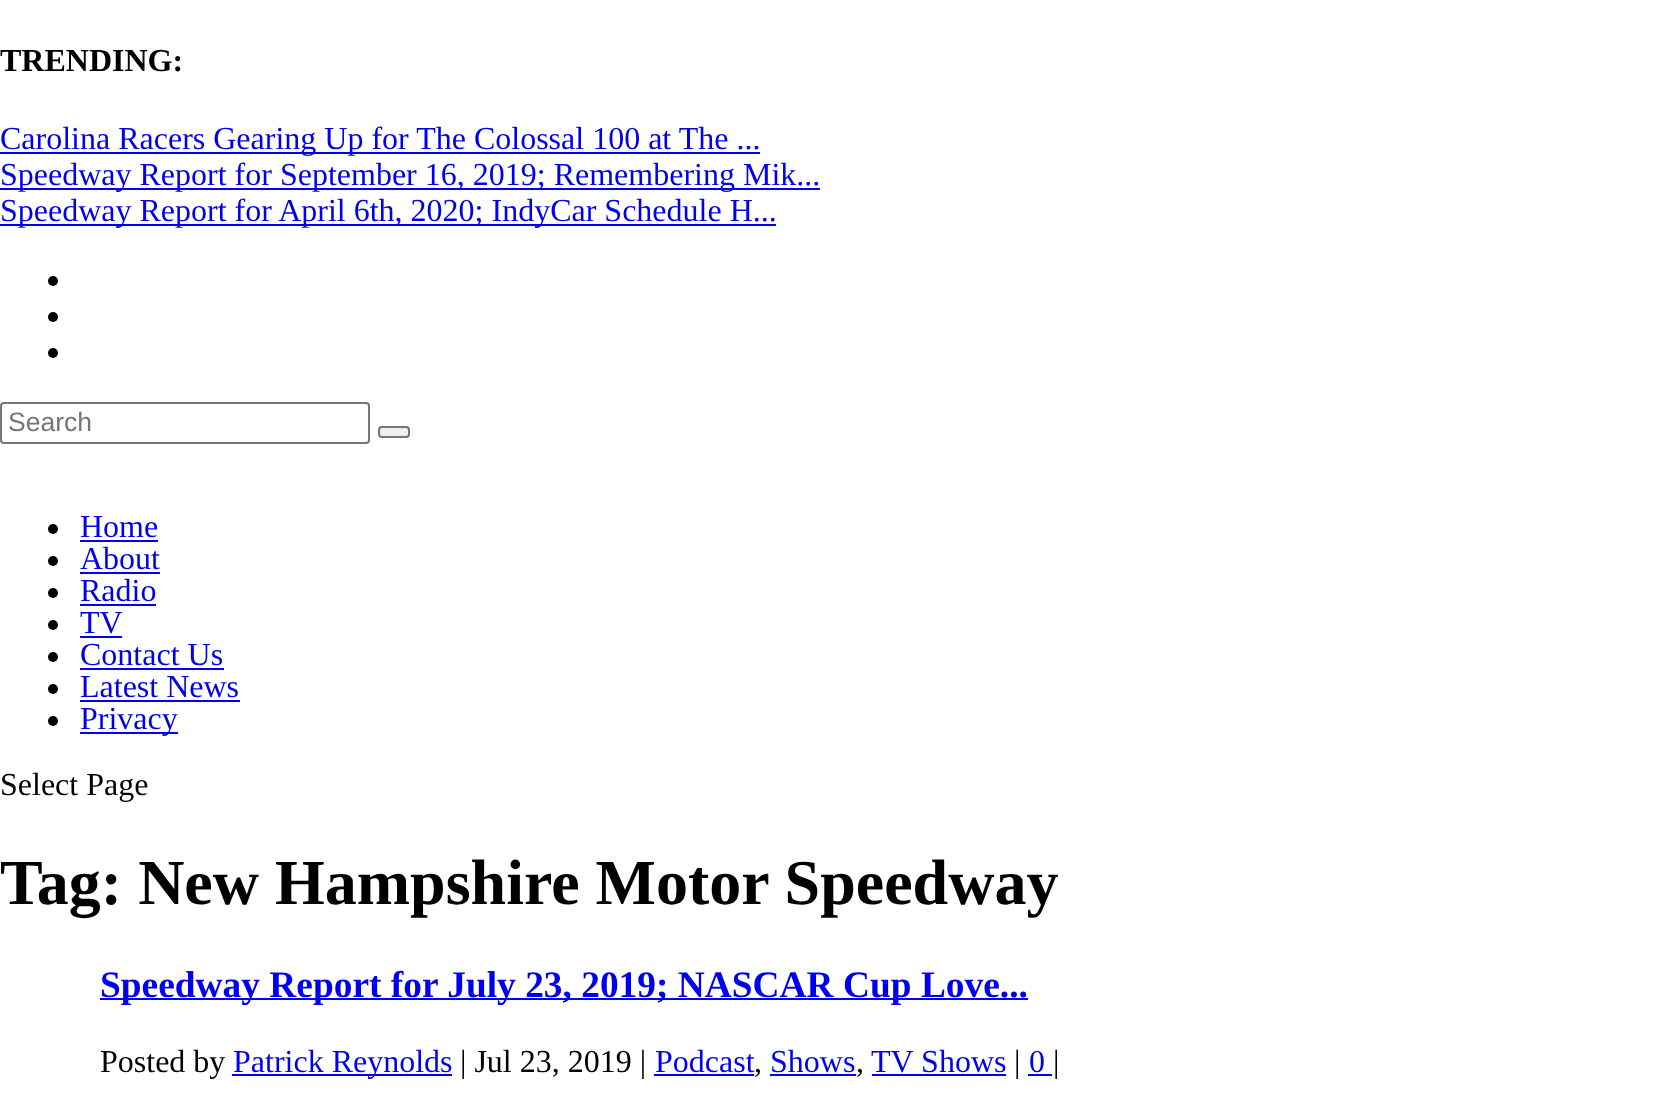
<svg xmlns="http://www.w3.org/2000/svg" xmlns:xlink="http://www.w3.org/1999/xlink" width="1660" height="1120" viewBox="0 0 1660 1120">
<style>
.cls-1{font:bold 32px Liberation Serif;fill:#000000}
.cls-2{font:32px Liberation Serif;fill:#0000ee}
.cls-3{font:26.5px Liberation Sans;fill:#757575}
.cls-4{font:32px Liberation Serif;fill:#000000}
.cls-5{font:bold 64px Liberation Serif;fill:#000000}
.cls-6{font:bold 37.4px Liberation Serif;fill:#0000ee}
</style>
<rect width="100%" height="100%" fill="#ffffff"/>
<rect fill="#0000ee" x="0" y="152" width="760" height="2"/>
<rect fill="#0000ee" x="0" y="188" width="820" height="2"/>
<rect fill="#0000ee" x="0" y="224" width="776" height="2"/>
<circle fill="#000000" cx="53" cy="281" r="5"/>
<circle fill="#000000" cx="53" cy="317" r="5"/>
<circle fill="#000000" cx="53" cy="353" r="5"/>
<rect fill="none" stroke="#767676" stroke-width="2" x="1" y="403" width="368" height="40" rx="3"/>
<rect fill="#efefef" stroke="#767676" stroke-width="2" x="379" y="427" width="30" height="10" rx="3"/>
<circle fill="#000000" cx="53" cy="529" r="5"/>
<rect fill="#0000ee" x="80" y="540" width="78" height="2"/>
<circle fill="#000000" cx="53" cy="561" r="5"/>
<rect fill="#0000ee" x="80" y="572" width="80" height="2"/>
<circle fill="#000000" cx="53" cy="593" r="5"/>
<rect fill="#0000ee" x="80" y="604" width="76" height="2"/>
<circle fill="#000000" cx="53" cy="625" r="5"/>
<rect fill="#0000ee" x="80" y="636" width="42" height="2"/>
<circle fill="#000000" cx="53" cy="657" r="5"/>
<rect fill="#0000ee" x="80" y="668" width="144" height="2"/>
<circle fill="#000000" cx="53" cy="689" r="5"/>
<rect fill="#0000ee" x="80" y="700" width="160" height="2"/>
<circle fill="#000000" cx="53" cy="721" r="5"/>
<rect fill="#0000ee" x="80" y="732" width="98" height="2"/>
<rect fill="#0000ee" x="100" y="998" width="928" height="2"/>
<rect fill="#0000ee" x="232" y="1074" width="220" height="2"/>
<rect fill="#0000ee" x="654" y="1074" width="100" height="2"/>
<rect fill="#0000ee" x="770" y="1074" width="86" height="2"/>
<rect fill="#0000ee" x="872" y="1074" width="134" height="2"/>
<rect fill="#0000ee" x="1028" y="1074" width="24" height="2"/>
<text class="cls-1" x="0" y="71">TRENDING:</text>
<text class="cls-2"><tspan x="0" y="149">Carolina Racers Gearing Up for The Colossal 100 at The ...</tspan><tspan x="0" y="185">Speedway Report for September 16, 2019; Remembering Mik...</tspan><tspan x="0" y="221">Speedway Report for April 6th, 2020; IndyCar Schedule H...</tspan></text>
<text class="cls-3" x="8" y="431">Search</text>
<text class="cls-2"><tspan x="80" y="537">Home</tspan><tspan x="80" y="569">About</tspan><tspan x="80" y="601">Radio</tspan><tspan x="80" y="633">TV</tspan><tspan x="80" y="665">Contact Us</tspan><tspan x="80" y="697">Latest News</tspan><tspan x="80" y="729">Privacy</tspan></text>
<text class="cls-4" x="0" y="795">Select Page</text>
<text class="cls-5" x="0" y="904">Tag: New Hampshire Motor Speedway</text>
<text class="cls-6" x="100" y="997">Speedway Report for July 23, 2019; NASCAR Cup Love...</text>
<text class="cls-4" x="100" y="1072">Posted by</text>
<text class="cls-2" x="233" y="1072">Patrick Reynolds</text>
<text class="cls-4" x="460" y="1072">| Jul 23, 2019 |</text>
<text class="cls-2" x="655" y="1072">Podcast</text>
<text class="cls-4" x="754" y="1072">,</text>
<text class="cls-2" x="770" y="1072">Shows</text>
<text class="cls-4" x="856" y="1072">,</text>
<text class="cls-2" x="871" y="1072">TV Shows</text>
<text class="cls-4" x="1014" y="1072">|</text>
<text class="cls-2" x="1029" y="1072">0</text>
<text class="cls-4" x="1053" y="1072">|</text>
</svg>
